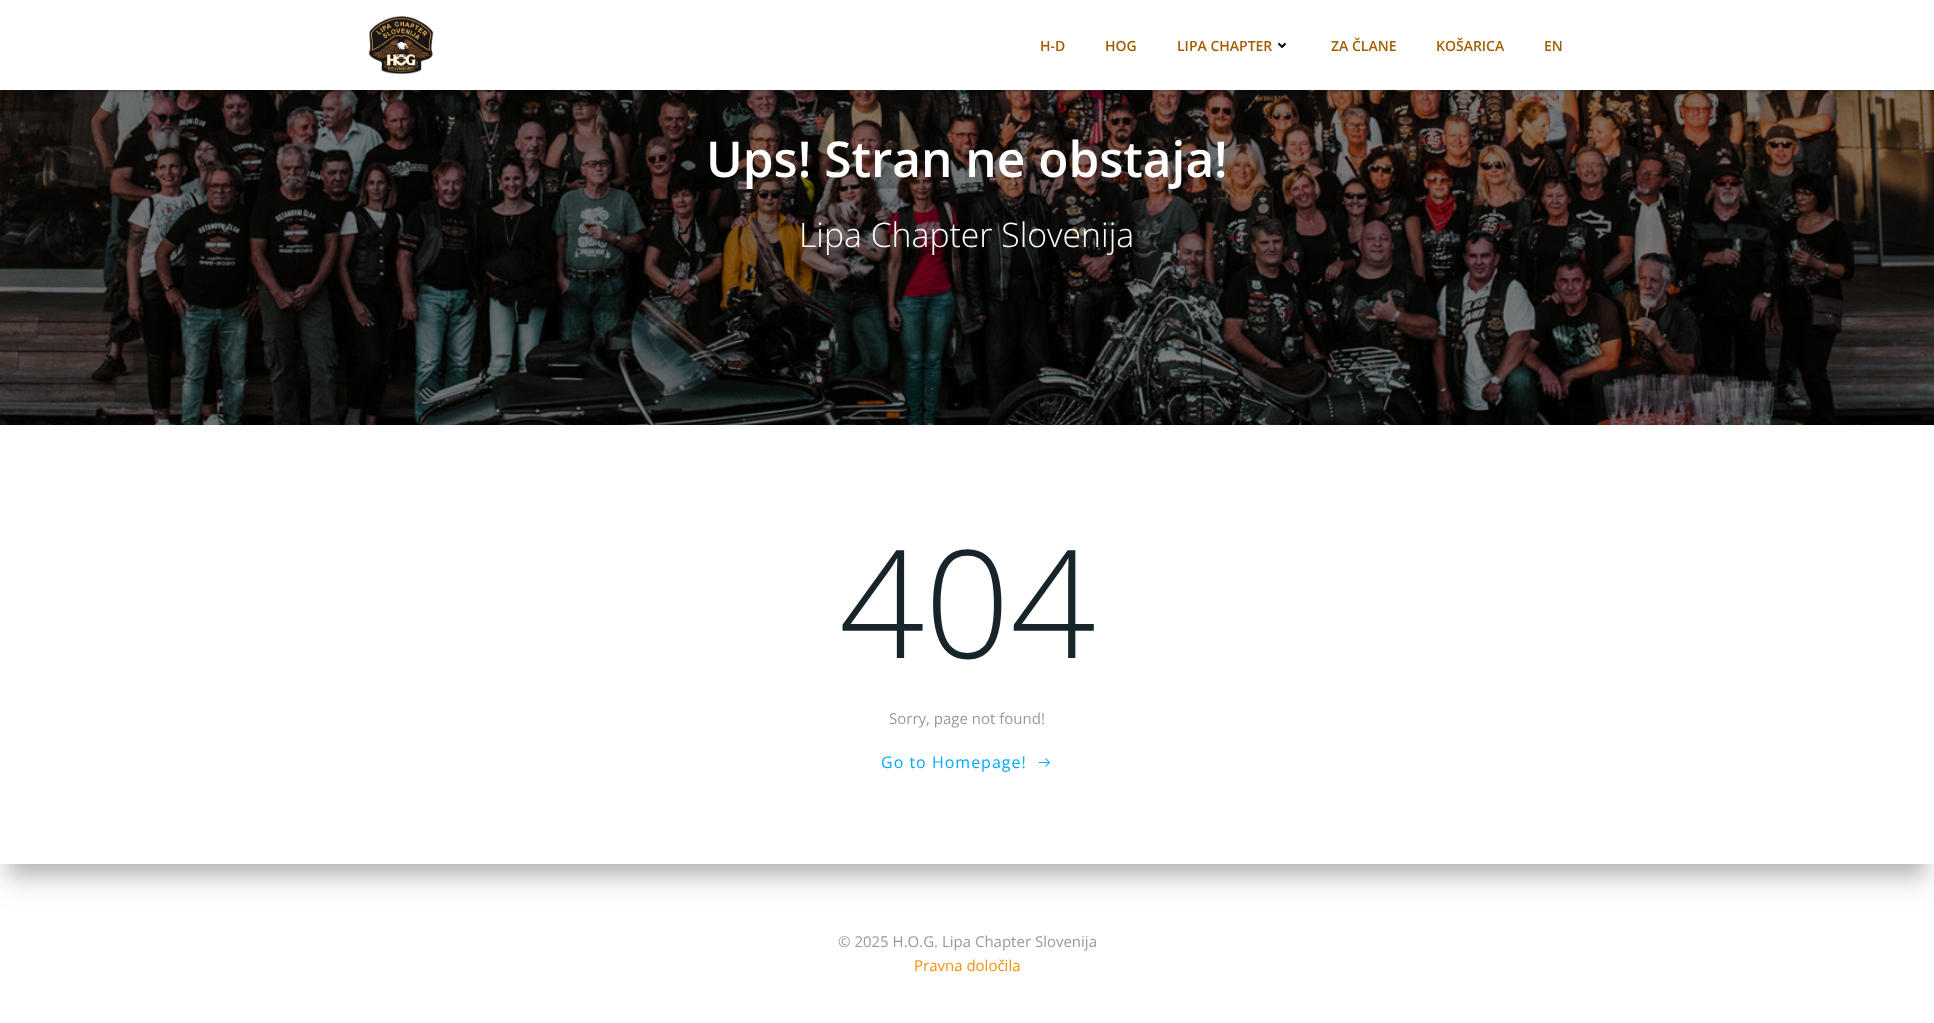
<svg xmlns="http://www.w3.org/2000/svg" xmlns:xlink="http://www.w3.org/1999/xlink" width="1934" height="1023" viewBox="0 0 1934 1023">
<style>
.cls-1{font:600 14px Open Sans;fill:#a25e05}
.cls-2{font:600 49.5px Open Sans;fill:#ffffff}
.cls-3{font:300 33.75px Open Sans;fill:#ffffff}
.cls-4{font:300 150px Open Sans;fill:#17252a}
.cls-5{font:15px Open Sans;fill:#999999}
.cls-6{font:16px Open Sans;letter-spacing:1px;fill:#03a9f4}
.cls-7{font:15px Open Sans;fill:#f79007}
</style>
<rect width="100%" height="100%" fill="#ffffff"/>
<image xlink:href="image0.png" x="0" y="90" width="1934" height="335"/>
<rect fill="#000000" fill-opacity="0.08" filter="blur(15px)" x="0" y="445" width="1934" height="439"/>
<rect fill="#313439" fill-opacity="0.3" filter="blur(10px)" x="10" y="455" width="1914" height="419"/>
<rect fill="#000000" fill-opacity="0.5" x="0" y="90" width="1934" height="335"/>
<rect fill="#000000" fill-opacity="0.5" filter="blur(2px)" x="0" y="0" width="1934" height="90"/>
<rect fill="#ffffff" x="0" y="0" width="1934" height="90"/>
<image xlink:href="image1.png" x="368" y="16" width="66" height="59"/>
<image xlink:href="image2.png" x="1278" y="43" width="8" height="5"/>
<rect fill="#ffffff" x="0" y="427" width="1934" height="437"/>
<image xlink:href="image3.png" x="1038" y="758" width="12" height="9"/>
<text class="cls-1" x="1040" y="51">H-D</text>
<text class="cls-1" x="1105" y="51">HOG</text>
<text class="cls-1" x="1177" y="51">LIPA CHAPTER</text>
<text class="cls-1" x="1331" y="51">ZA ČLANE</text>
<text class="cls-1" x="1436" y="51">KOŠARICA</text>
<text class="cls-1" x="1544" y="51">EN</text>
<text class="cls-2" x="706" y="177">Ups! Stran ne obstaja!</text>
<text class="cls-3" x="799" y="247">Lipa Chapter Slovenija</text>
<text class="cls-4" x="839" y="658">404</text>
<text class="cls-5" x="889" y="724">Sorry, page not found!</text>
<text class="cls-6" x="881" y="768">Go to Homepage!</text>
<text class="cls-5" x="838" y="947">© 2025 H.O.G. Lipa Chapter Slovenija</text>
<text class="cls-7" x="914" y="971">Pravna določila</text>
</svg>
